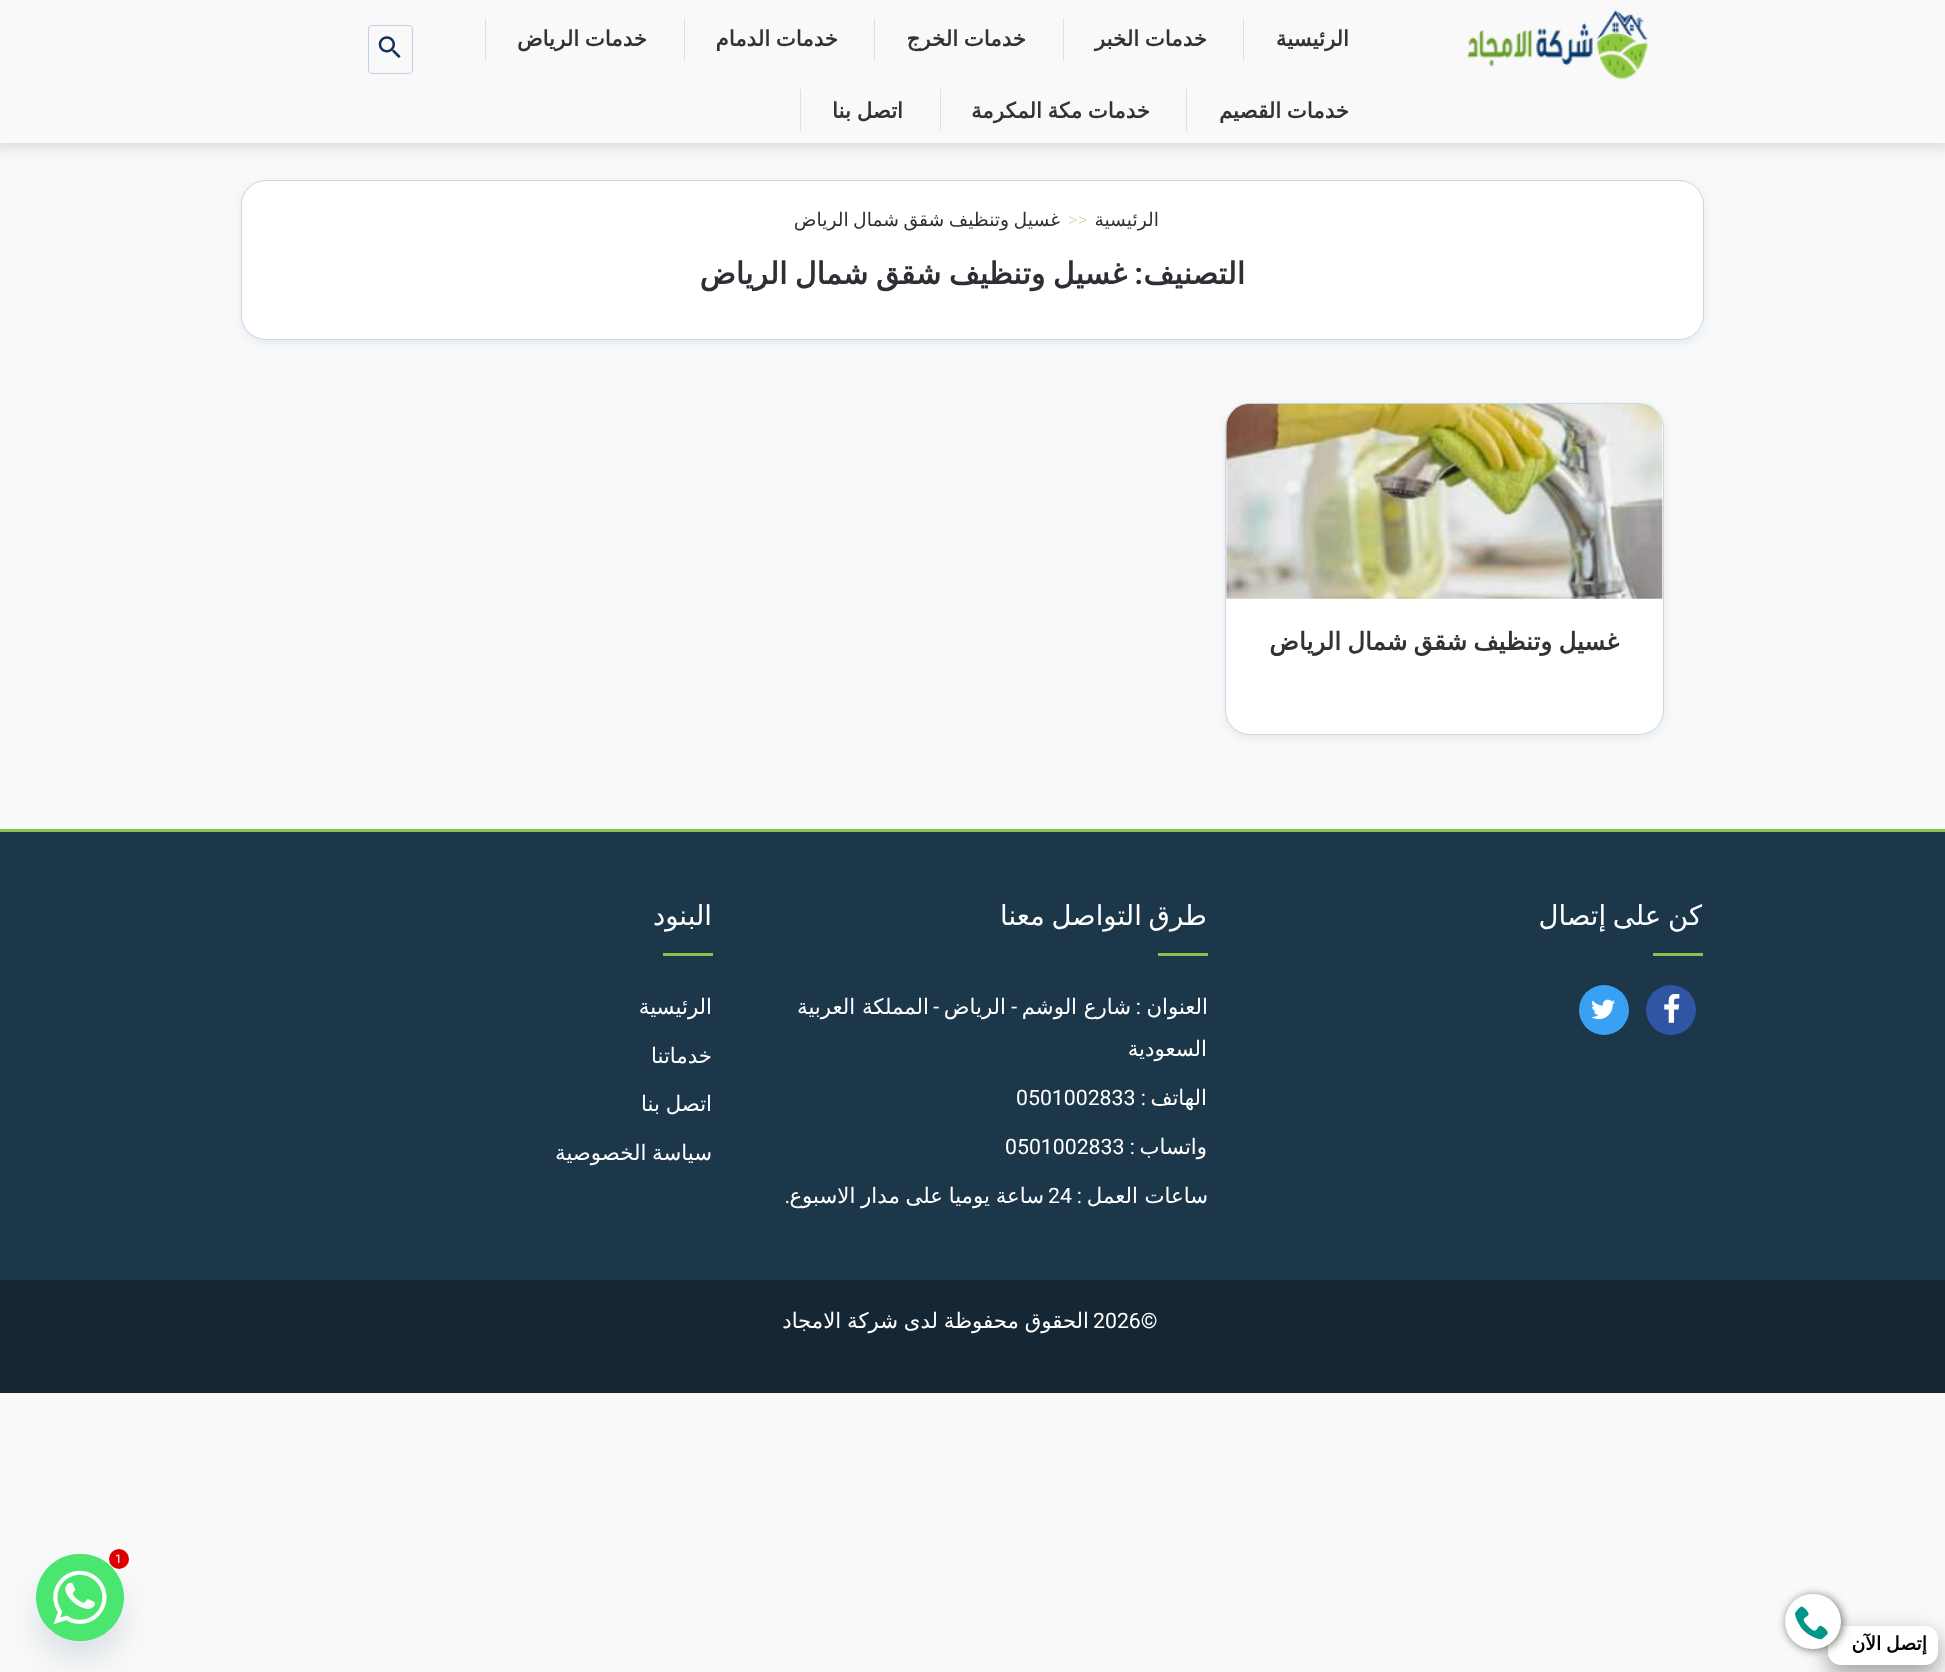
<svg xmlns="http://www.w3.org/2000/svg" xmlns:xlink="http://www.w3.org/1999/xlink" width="1945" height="1672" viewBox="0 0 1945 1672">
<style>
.cls-1{font:bold 21.25px DejaVu Sans;direction:rtl;fill:#333333}
.cls-2{font:18.75px DejaVu Sans;direction:rtl;fill:#333333}
.cls-3{font:100 18.75px Roboto;fill:#8bc34a}
.cls-4{font:18.75px DejaVu Sans;direction:rtl;fill:#2c2f34}
.cls-5{font:bold 30px DejaVu Sans;direction:rtl;fill:#2c2f34}
.cls-6{font:bold 30px Roboto;direction:rtl;fill:#2c2f34}
.cls-7{font:bold 24.5px DejaVu Sans;direction:rtl;fill:#333333}
.cls-8{font:27.5px DejaVu Sans;direction:rtl;fill:#ffffff}
.cls-9{font:21.25px DejaVu Sans;direction:rtl;fill:#ffffff}
.cls-10{font:21.25px Roboto;direction:rtl;fill:#ffffff}
.cls-11{font:21.25px Roboto;fill:#ffffff}
.cls-12{font:bold 18.75px DejaVu Sans;direction:rtl;fill:#000000}
.cls-13{font:12px Roboto;fill:#ffffff}
</style>
<defs>
<clipPath id="clip1"><path d="M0 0H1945V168H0ZM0 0H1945V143H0Z" clip-rule="evenodd"/></clipPath>
</defs>
<rect width="100%" height="100%" fill="#f9f9f9"/>
<g clip-path="url(#clip1)">
<rect fill="#000000" fill-opacity="0.1" filter="blur(6px)" x="-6" y="-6" width="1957" height="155"/>
</g>
<image xlink:href="image0.png" x="1467" y="10" width="181" height="70"/>
<rect fill="#e0e0e0" x="1243" y="18" width="1" height="42"/>
<rect fill="#e0e0e0" x="1063" y="18" width="1" height="42"/>
<rect fill="#e0e0e0" x="874" y="18" width="1" height="42"/>
<rect fill="#e0e0e0" x="684" y="18" width="1" height="42"/>
<rect fill="#e0e0e0" x="485" y="18" width="1" height="42"/>
<rect fill="#e0e0e0" x="1186" y="89" width="1" height="42"/>
<rect fill="#e0e0e0" x="940" y="89" width="1" height="42"/>
<rect fill="#e0e0e0" x="800" y="89" width="1" height="42"/>
<rect fill="none" stroke="#bed1ea" x="368.5" y="25.5" width="44" height="48" rx="3.5"/>
<image xlink:href="image1.png" x="378" y="36" width="23" height="22"/>
<rect fill="#1460aa" fill-opacity="0.1" filter="blur(5px)" x="241" y="183" width="1463" height="160" rx="25"/>
<rect fill="#ffffff" stroke="#c8d7e1" x="241.5" y="180.5" width="1462" height="159" rx="24.5"/>
<rect fill="#1460aa" fill-opacity="0.1" filter="blur(5px)" x="1225" y="405" width="439" height="333" rx="25"/>
<rect fill="#ffffff" stroke="#c8d7e1" x="1225.5" y="403.5" width="438" height="331" rx="24.5"/>
<image xlink:href="image2.png" x="1226" y="403" width="437" height="196"/>
<rect fill="#1d374a" x="0" y="832" width="1945" height="448"/>
<rect fill="#8bc34a" x="0" y="829" width="1945" height="3"/>
<rect fill="#8bc34a" x="1653" y="953" width="50" height="3"/>
<circle fill="#2f55a4" cx="1671" cy="1010" r="25"/>
<image xlink:href="image3.png" x="1664" y="994" width="16" height="29"/>
<circle fill="#38a1f3" cx="1604" cy="1010" r="25"/>
<image xlink:href="image4.png" x="1591" y="999" width="24" height="21"/>
<rect fill="#8bc34a" x="1158" y="953" width="50" height="3"/>
<rect fill="#8bc34a" x="663" y="953" width="50" height="3"/>
<rect fill="#152735" x="0" y="1280" width="1945" height="113"/>
<rect fill="#000000" fill-opacity="0.19" filter="blur(12.5px)" x="1828" y="1634" width="110" height="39" rx="13"/>
<rect fill="#000000" fill-opacity="0.2" filter="blur(10px)" x="1828" y="1636" width="110" height="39" rx="13"/>
<rect fill="#ffffff" x="1828" y="1626" width="110" height="39" rx="13"/>
<rect fill="#444444" fill-opacity="0.71" filter="blur(4px)" x="1786" y="1595" width="57" height="55" rx="27.5"/>
<rect fill="#ffffff" x="1785" y="1594" width="56" height="55" rx="27.5"/>
<image xlink:href="image5.png" x="1795" y="1606" width="33" height="34"/>
<rect fill="#49687e" fill-opacity="0.16" filter="blur(15px)" x="36" y="1574" width="88" height="87" rx="43.5"/>
<rect fill="#49e670" x="36" y="1554" width="88" height="87" rx="43.5"/>
<image xlink:href="image6.png" x="36" y="1554" width="88" height="87"/>
<circle fill="#dd0000" cx="119" cy="1559" r="10"/>
<text class="cls-1" x="1349" y="46">الرئيسية</text>
<text class="cls-1" x="1207" y="46" word-spacing="-1">خدمات الخبر</text>
<text class="cls-1" x="1026" y="46" word-spacing="-1">خدمات الخرج</text>
<text class="cls-1" x="838" y="46" word-spacing="-1">خدمات الدمام</text>
<text class="cls-1" x="647" y="46" word-spacing="-1">خدمات الرياض</text>
<text class="cls-1" x="1349" y="118" word-spacing="-1">خدمات القصيم</text>
<text class="cls-1" x="1150" y="118" word-spacing="-1">خدمات مكة المكرمة</text>
<text class="cls-1" x="903" y="118" word-spacing="-1">اتصل بنا</text>
<text class="cls-2" x="1159" y="226">الرئيسية</text>
<text class="cls-3" x="1068" y="226">&gt;&gt;</text>
<text class="cls-4" x="1060" y="226" word-spacing="-1.5">غسيل وتنظيف شقق شمال الرياض</text>
<text class="cls-5" x="1245" y="284">التصنيف</text>
<text class="cls-6" x="1143" y="284">:</text>
<text class="cls-5" x="1127" y="284" word-spacing="-2">غسيل وتنظيف شقق شمال الرياض</text>
<text class="cls-7" x="1619" y="650" word-spacing="-1.5">غسيل وتنظيف شقق شمال الرياض</text>
<text class="cls-8" x="1702" y="925" word-spacing="-2">كن على إتصال</text>
<text class="cls-8" x="1207" y="925" word-spacing="-2">طرق التواصل معنا</text>
<text class="cls-9" x="1208" y="1014">العنوان</text>
<text class="cls-10" x="1141" y="1014">:</text>
<text class="cls-9" x="1131" y="1014">شارع الوشم</text>
<text class="cls-10" x="1017" y="1014">-</text>
<text class="cls-9" x="1006" y="1014">الرياض</text>
<text class="cls-10" x="939" y="1014">-</text>
<text class="cls-9" x="929" y="1014">المملكة العربية</text>
<text class="cls-9" x="1207" y="1056">السعودية</text>
<text class="cls-9" x="1207" y="1105">الهاتف</text>
<text class="cls-10" x="1146" y="1105">:</text>
<text class="cls-11" x="1016" y="1105">0501002833</text>
<text class="cls-9" x="1207" y="1154">واتساب</text>
<text class="cls-10" x="1135" y="1154">:</text>
<text class="cls-11" x="1005" y="1154">0501002833</text>
<text class="cls-9" x="1208" y="1203">ساعات العمل</text>
<text class="cls-10" x="1082" y="1203">:</text>
<text class="cls-11" x="1048" y="1203">24</text>
<text class="cls-9" x="1044" y="1203" word-spacing="-1">ساعة يوميا على مدار الاسبوع</text>
<text class="cls-10" x="790" y="1203">.</text>
<text class="cls-8" x="712" y="925">البنود</text>
<text class="cls-9" x="712" y="1014">الرئيسية</text>
<text class="cls-9" x="712" y="1063">خدماتنا</text>
<text class="cls-9" x="712" y="1111" word-spacing="-1">اتصل بنا</text>
<text class="cls-9" x="712" y="1160" word-spacing="-1">سياسة الخصوصية</text>
<text class="cls-11" x="1093" y="1328">2026©</text>
<text class="cls-9" x="1089" y="1328" word-spacing="-1">الحقوق محفوظة لدى شركة الامجاد</text>
<text class="cls-12" x="1927" y="1650" word-spacing="-1">إتصل الآن</text>
<text class="cls-13" x="115" y="1563">1</text>
</svg>
